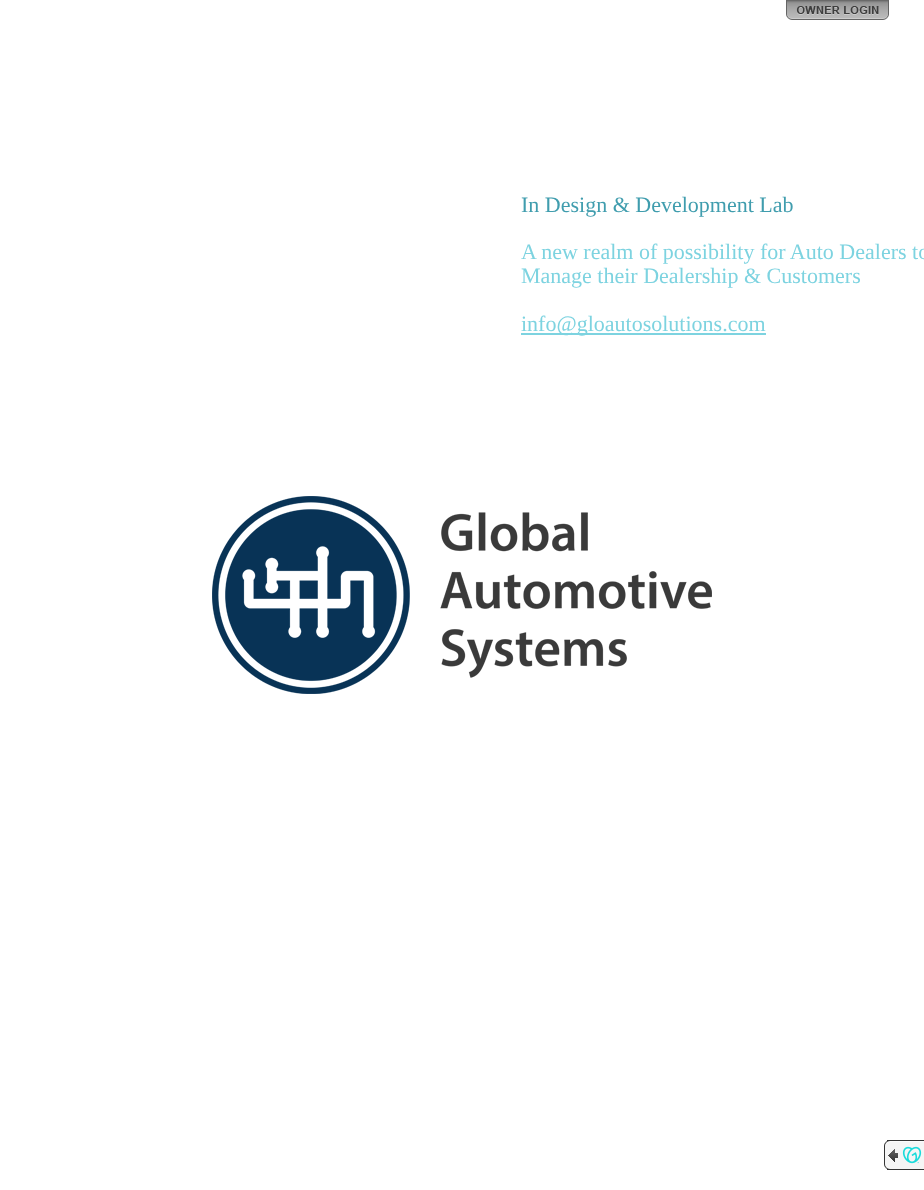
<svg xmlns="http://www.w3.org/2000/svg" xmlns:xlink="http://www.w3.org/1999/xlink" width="924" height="1190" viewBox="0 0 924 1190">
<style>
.cls-1{font:22px Liberation Serif;fill:#409dae}
.cls-2{font:22px Liberation Serif;fill:#7dd3e0}
</style>
<rect width="100%" height="100%" fill="#ffffff"/>
<image xlink:href="image0.png" x="786" y="0" width="103" height="20"/>
<rect fill="#7dd3e0" x="521" y="333" width="245" height="2"/>
<image xlink:href="image1.png" x="887" y="1140" width="37" height="30"/>
<image xlink:href="image2.png" x="884" y="1141" width="14" height="28"/>
<image xlink:href="image3.png" x="902" y="1146" width="20" height="18"/>
<image xlink:href="image4.png" x="212" y="496" width="500" height="198"/>
<text class="cls-1" x="521" y="212">In Design &amp; Development Lab</text>
<text class="cls-2"><tspan x="521" y="259">A new realm of possibility for Auto Dealers to</tspan><tspan x="521" y="283">Manage their Dealership &amp; Customers</tspan></text>
<text class="cls-2" x="521" y="331">info@gloautosolutions.com</text>
</svg>
